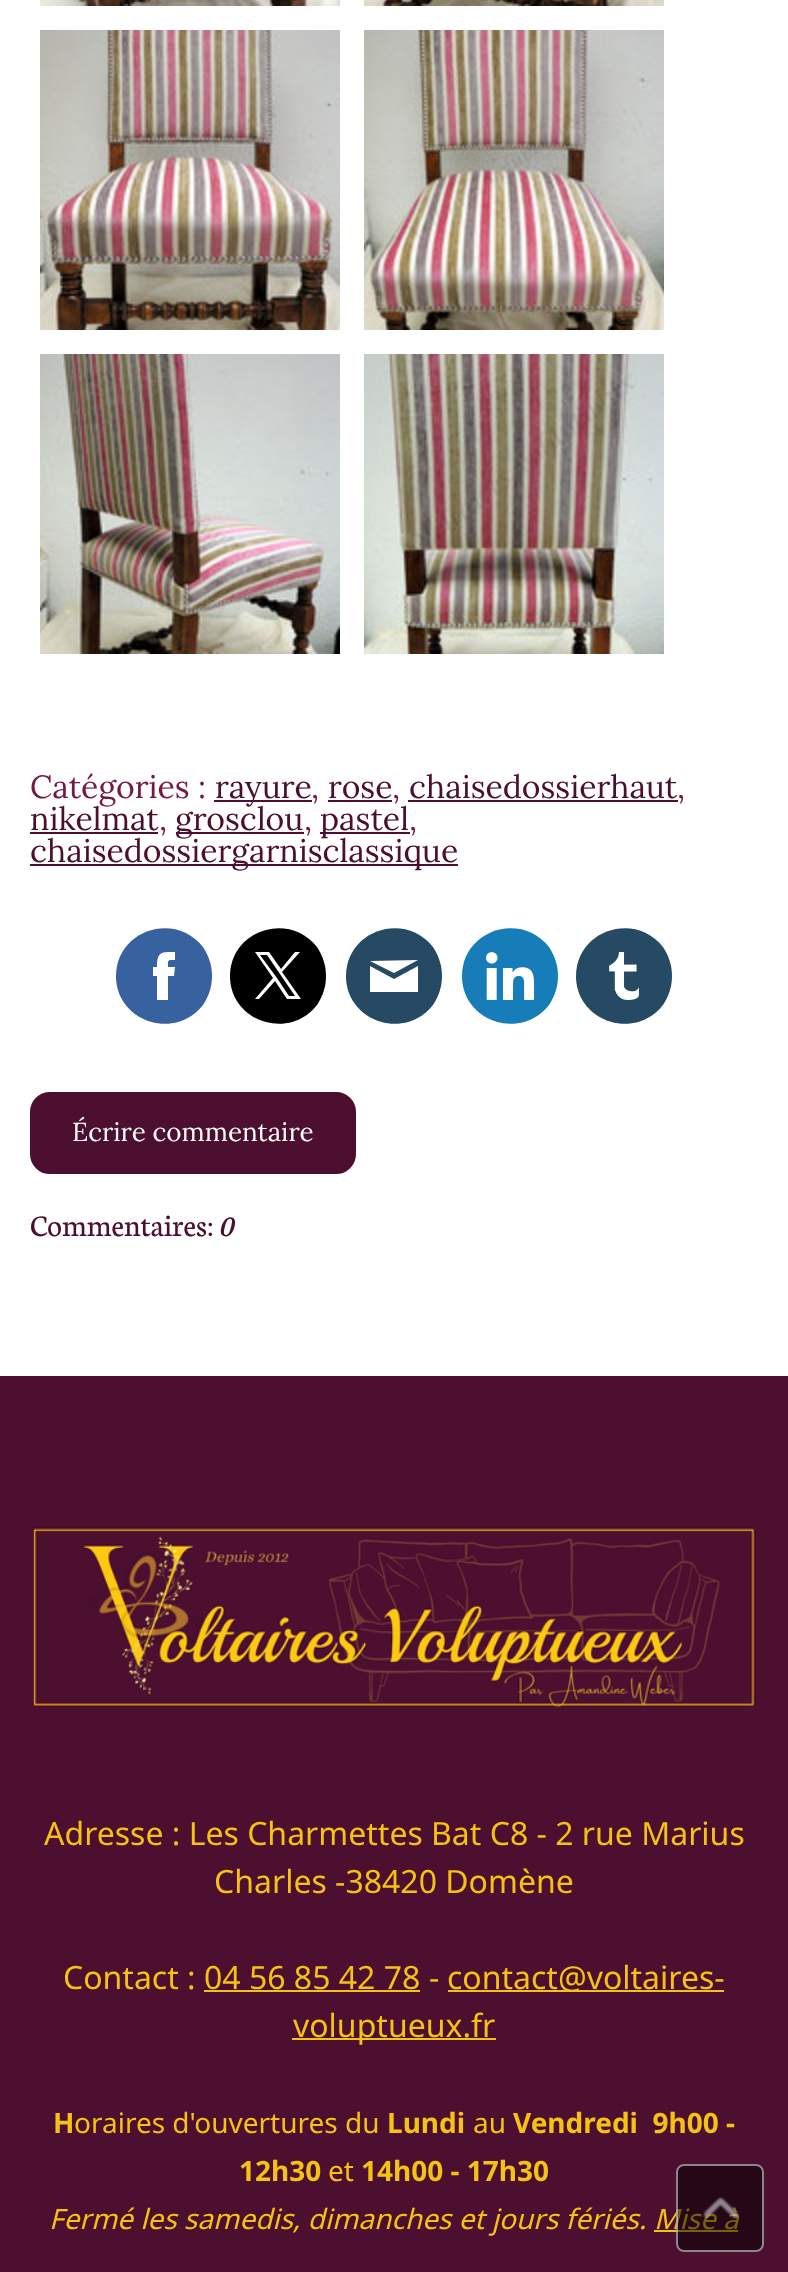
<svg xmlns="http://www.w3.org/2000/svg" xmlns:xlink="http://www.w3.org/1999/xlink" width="788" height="2272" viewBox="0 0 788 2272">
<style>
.cls-1{font:32px Lora;fill:#751847}
.cls-2{font:32px Lora;fill:#4d0f30}
.cls-3{font:26px Lora;fill:#ffffff}
.cls-4{font:32px Neuton;fill:#4d0f30}
.cls-5{font:italic 32px Neuton;fill:#4d0f30}
.cls-6{font:32px Noto Sans;fill:#f3c212}
.cls-7{font:bold 28px Noto Sans;fill:#f3c212}
.cls-8{font:28px Noto Sans;fill:#f3c212}
.cls-9{font:italic 28px Noto Sans;fill:#f3c212}
</style>
<rect width="100%" height="100%" fill="#ffffff"/>
<image xlink:href="image0.png" x="40" y="0" width="300" height="6"/>
<image xlink:href="image1.png" x="364" y="0" width="300" height="6"/>
<image xlink:href="image2.png" x="40" y="30" width="300" height="300"/>
<image xlink:href="image3.png" x="364" y="30" width="300" height="300"/>
<image xlink:href="image4.png" x="40" y="354" width="300" height="300"/>
<image xlink:href="image5.png" x="364" y="354" width="300" height="300"/>
<rect fill="#4d0f30" x="214" y="800" width="98" height="2"/>
<rect fill="#4d0f30" x="328" y="800" width="64" height="2"/>
<rect fill="#4d0f30" x="408" y="800" width="270" height="2"/>
<rect fill="#4d0f30" x="30" y="832" width="128" height="2"/>
<rect fill="#4d0f30" x="176" y="832" width="128" height="2"/>
<rect fill="#4d0f30" x="320" y="832" width="90" height="2"/>
<rect fill="#4d0f30" x="30" y="864" width="428" height="2"/>
<path fill="#38619f" d="M116 976C116 1022 175 1041 203 1005C209 996 212 986 212 976C212 966 209 956 203 947C175 911 116 930 116 976Z"/>
<path fill="#ffffff" d="M175 952C162 952 157 951 157 967H153V976H157V1000H168V976H174L175 967H168C168 960 167 960 175 960Z"/>
<path fill="#000000" d="M230 976C230 1022 289 1041 317 1005C323 996 326 986 326 976C326 966 323 956 317 947C289 911 230 930 230 976Z"/>
<path fill="#ffffff" d="M282 972L300 952H295L281 969L269 952H255L273 978L255 999H259L275 981L287 999H301ZM277 978L260 955H267L295 996H289Z"/>
<path fill="#264a64" d="M346 976C346 1022 405 1041 433 1005C439 996 442 986 442 976C442 966 439 956 433 947C405 911 346 930 346 976Z"/>
<path fill="#ffffff" d="M418 992H370V966L394 979L418 966ZM418 960L370 961L394 973Z"/>
<path fill="#177db9" d="M462 976C462 1022 521 1041 549 1005C555 996 558 986 558 976C558 966 555 956 549 947C521 911 462 930 462 976Z"/>
<image xlink:href="image6.png" x="486" y="952" width="49" height="48"/>
<path fill="#264a64" d="M576 976C576 1022 635 1041 663 1005C669 996 672 986 672 976C672 966 669 956 663 947C635 911 576 930 576 976Z"/>
<image xlink:href="image7.png" x="609" y="952" width="30" height="48"/>
<rect fill="#4d0f30" stroke="#4d0f30" stroke-width="2" x="31" y="1093" width="324" height="80" rx="19"/>
<rect fill="#4d0f30" x="0" y="1376" width="788" height="896"/>
<image xlink:href="image8.png" x="33" y="1527" width="723" height="181"/>
<rect fill="#f2c314" x="204" y="1990" width="216" height="2"/>
<rect fill="#f2c314" x="448" y="1990" width="276" height="2"/>
<rect fill="#f2c314" x="292" y="2038" width="204" height="2"/>
<rect fill="#f2c314" x="654" y="2230" width="84" height="2"/>
<text class="cls-1" x="30" y="798">Catégories :</text>
<text class="cls-2" x="215" y="798">rayure</text>
<text class="cls-1" x="311" y="798">,</text>
<text class="cls-2" x="328" y="798">rose</text>
<text class="cls-1" x="392" y="798">,</text>
<text class="cls-2" x="409" y="798">chaisedossierhaut</text>
<text class="cls-1" x="677" y="798">,</text>
<text class="cls-2" x="30" y="830">nikelmat</text>
<text class="cls-1" x="159" y="830">,</text>
<text class="cls-2" x="175" y="830">grosclou</text>
<text class="cls-1" x="304" y="830">,</text>
<text class="cls-2" x="320" y="830">pastel</text>
<text class="cls-1" x="409" y="830">,</text>
<text class="cls-2" x="30" y="862">chaisedossiergarnisclassique</text>
<text class="cls-3" x="72" y="1141">Écrire commentaire</text>
<text class="cls-4" x="30" y="1236">Commentaires:</text>
<text class="cls-5" x="218" y="1236">0</text>
<text class="cls-6" x="44" y="1845">Adresse : Les Charmettes Bat C8 - 2 rue Marius</text>
<text class="cls-6" x="214" y="1893">Charles -38420 Domène</text>
<text class="cls-6" x="63" y="1989">Contact :</text>
<text class="cls-6" x="204" y="1989">04 56 85 42 78</text>
<text class="cls-6" x="429" y="1989">-</text>
<text class="cls-6" x="447" y="1989">contact@voltaires-</text>
<text class="cls-6" x="293" y="2037">voluptueux.fr</text>
<text class="cls-7" x="53" y="2133">H</text>
<text class="cls-8" x="74" y="2133">oraires d'ouvertures du</text>
<text class="cls-7" x="387" y="2133">Lundi</text>
<text class="cls-8" x="473" y="2133">au</text>
<text class="cls-7" xml:space="preserve" x="513" y="2133">Vendredi  9h00 -</text>
<text class="cls-7" x="239" y="2181">12h30</text>
<text class="cls-8" x="328" y="2181">et</text>
<text class="cls-7" x="361" y="2181">14h00 - 17h30</text>
<text class="cls-9" x="49" y="2229">Fermé les samedis, dimanches et jours fériés.</text>
<text class="cls-9" x="654" y="2229">Mise à</text>
<rect fill="#000000" fill-opacity="0.5" x="676" y="2164" width="88" height="88" rx="8"/>
<rect fill="none" stroke="#ffffff" stroke-opacity="0.5" stroke-width="2" x="677" y="2165" width="86" height="86" rx="7"/>
<image xlink:href="image9.png" x="703" y="2197" width="36" height="22"/>
</svg>
